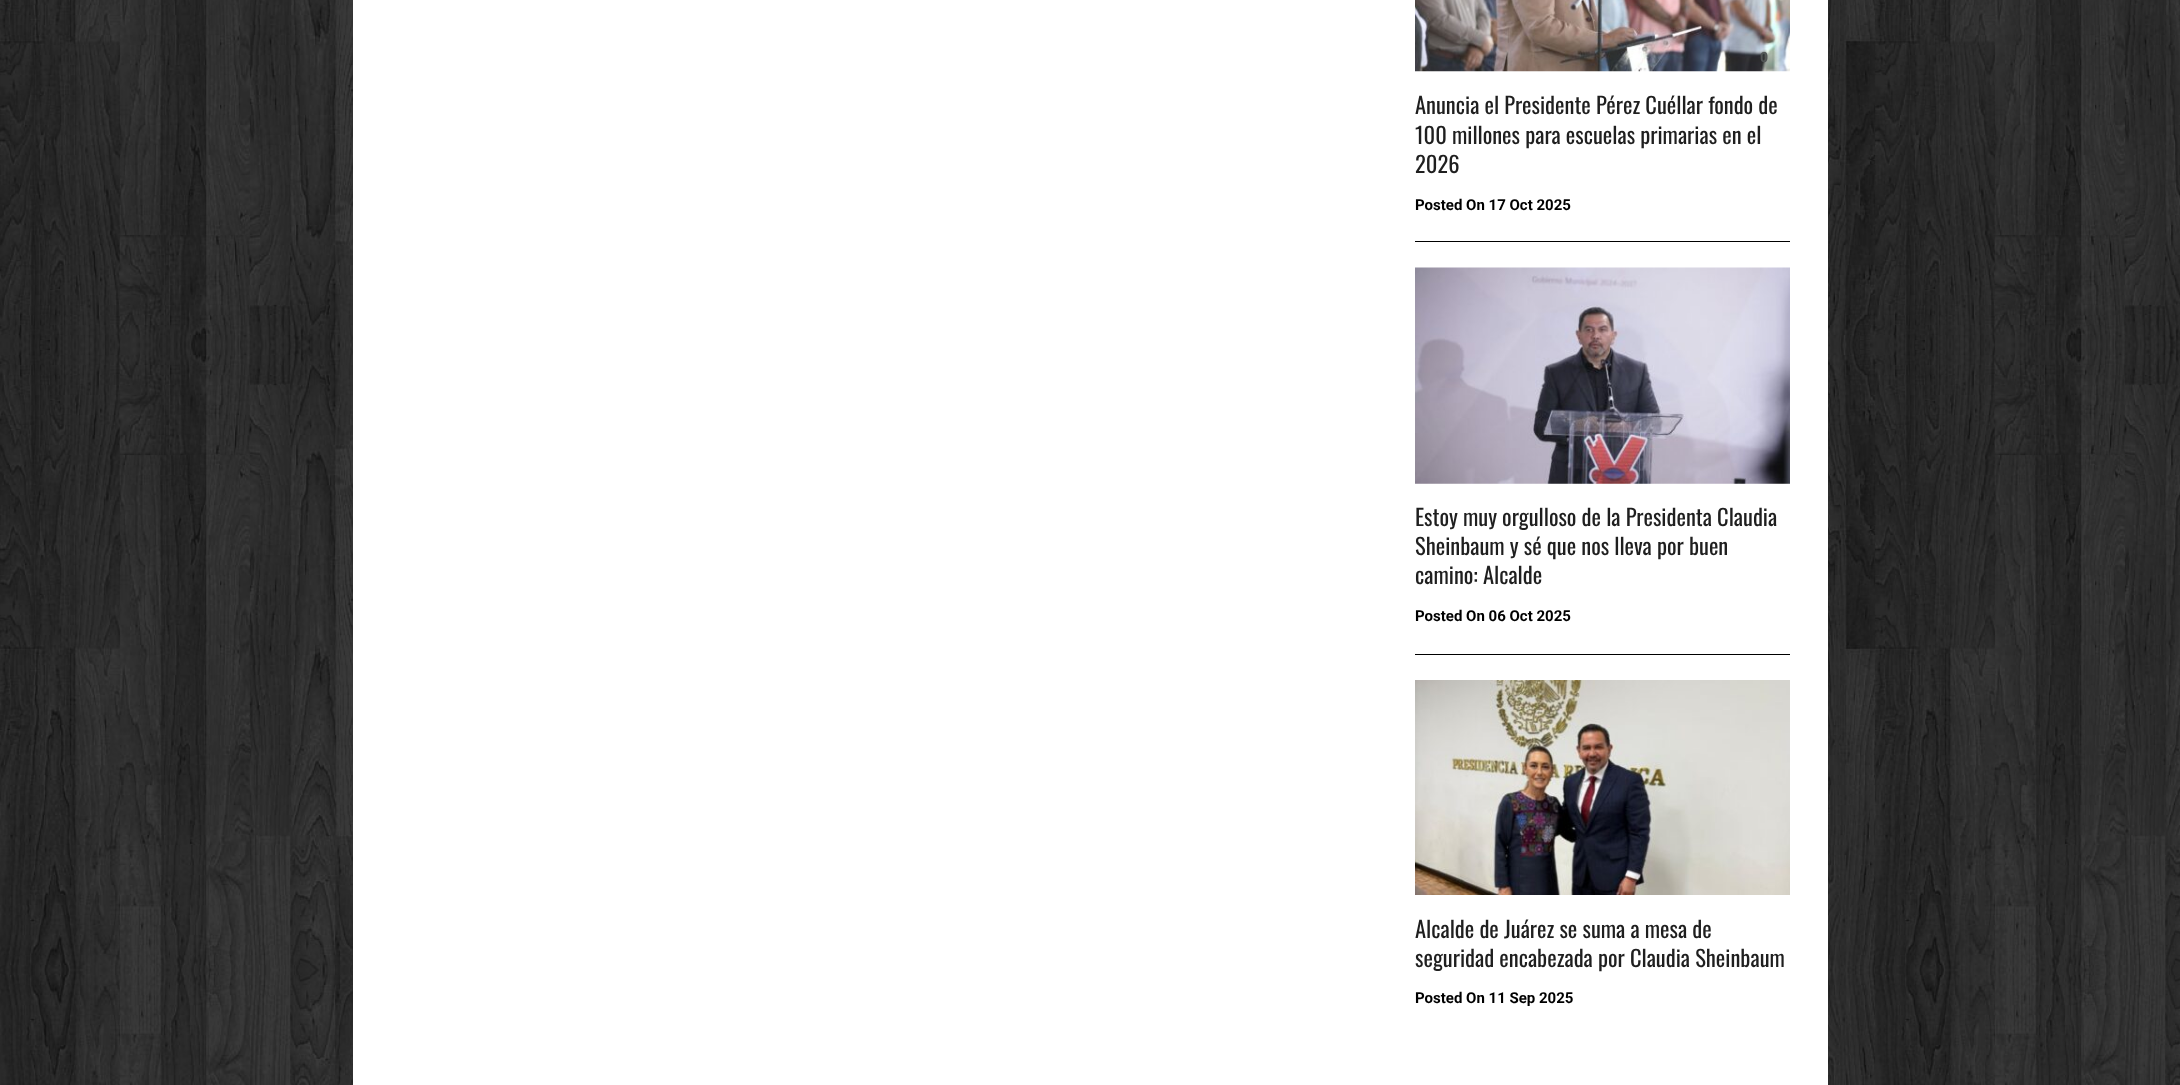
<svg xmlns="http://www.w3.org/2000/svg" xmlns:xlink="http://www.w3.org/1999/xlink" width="2180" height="1085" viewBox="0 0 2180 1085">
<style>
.cls-1{font:bold 14px Roboto;fill:#535756}
.cls-2{font:22.5px Oswald;fill:#1f1f1f}
.cls-3{font:bold 15px Roboto;fill:#000000}
</style>
<rect width="100%" height="100%" fill="#ffffff"/>
<image xlink:href="image0.png" x="0" y="0" width="2180" height="1085"/>
<rect fill="#ffffff" x="353" y="0" width="1475" height="1085"/>
<rect fill="#000000" x="1415" y="241" width="375" height="1"/>
<image xlink:href="image1.png" x="1415" y="0" width="375" height="72"/>
<rect fill="#000000" x="1415" y="654" width="375" height="1"/>
<image xlink:href="image2.png" x="1415" y="267" width="375" height="217"/>
<image xlink:href="image3.png" x="1415" y="680" width="375" height="215"/>
<text class="cls-1" x="1760" y="62">0</text>
<text class="cls-2"><tspan x="1415" y="114">Anuncia el Presidente Pérez Cuéllar fondo de</tspan><tspan x="1415" y="144">100 millones para escuelas primarias en el</tspan><tspan x="1415" y="173">2026</tspan></text>
<text class="cls-3" x="1415" y="210">Posted On 17 Oct 2025</text>
<text class="cls-2"><tspan x="1415" y="526">Estoy muy orgulloso de la Presidenta Claudia</tspan><tspan x="1415" y="555">Sheinbaum y sé que nos lleva por buen</tspan><tspan x="1415" y="584">camino: Alcalde</tspan></text>
<text class="cls-3" x="1415" y="621">Posted On 06 Oct 2025</text>
<text class="cls-2"><tspan x="1415" y="938">Alcalde de Juárez se suma a mesa de</tspan><tspan x="1415" y="967">seguridad encabezada por Claudia Sheinbaum</tspan></text>
<text class="cls-3" x="1415" y="1003">Posted On 11 Sep 2025</text>
</svg>
